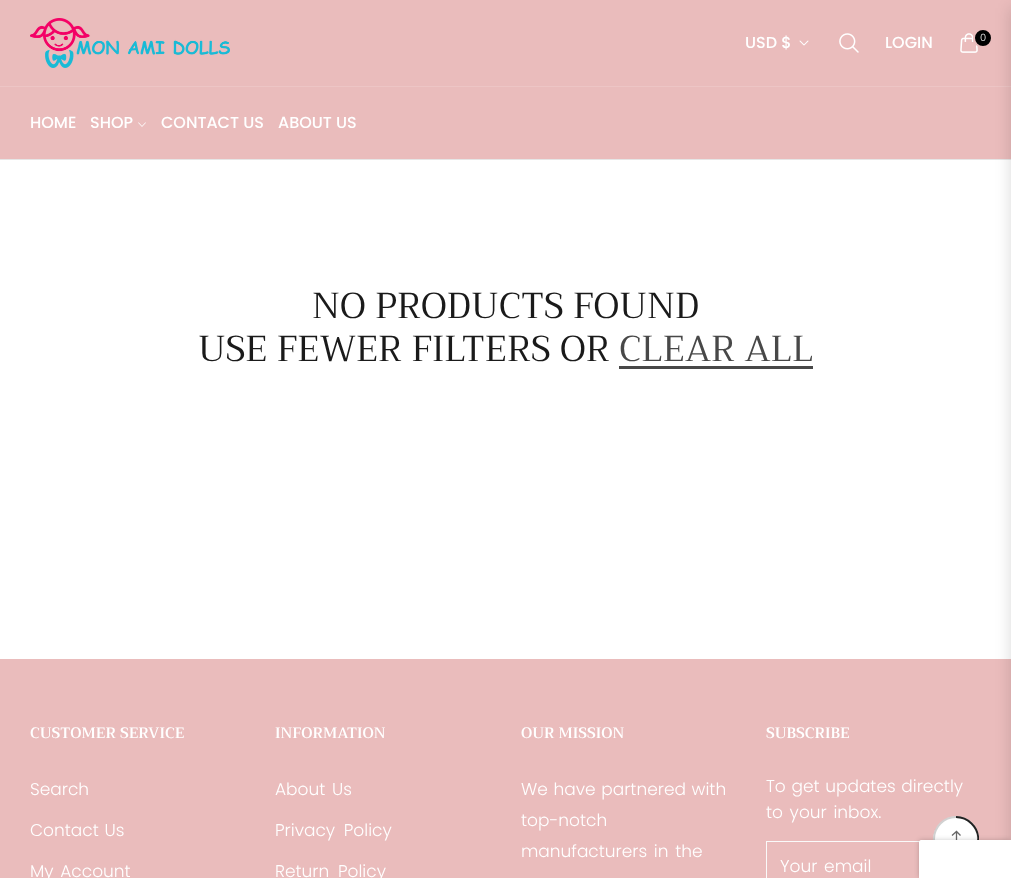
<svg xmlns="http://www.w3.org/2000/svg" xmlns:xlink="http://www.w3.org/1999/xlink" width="1011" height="878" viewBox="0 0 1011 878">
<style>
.cls-1{font:500 16px Poppins;fill:#ffffff}
.cls-2{font:300 10px Poppins;fill:#ffffff}
.cls-3{font:36px Trirong;fill:#1a1a1a}
.cls-4{font:36px Trirong;fill:#484848}
.cls-5{font:600 15px Trirong;fill:#ffffff}
.cls-6{font:300 17px Poppins;fill:#ffffff}
</style>
<defs>
<clipPath id="clip1"><rect x="933" y="816" width="46" height="46"/></clipPath>
</defs>
<rect width="100%" height="100%" fill="#ffffff"/>
<rect fill="none" stroke="#e6e6e6" x="-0.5" y="-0.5" width="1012" height="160"/>
<rect fill="#eabcbc" x="0" y="0" width="1011" height="159"/>
<image xlink:href="image0.png" x="30" y="18" width="200" height="50"/>
<image xlink:href="image1.png" x="799" y="40" width="10" height="6"/>
<image xlink:href="image2.png" x="839" y="33" width="20" height="20"/>
<image xlink:href="image3.png" x="960" y="33" width="18" height="20"/>
<circle fill="#000000" stroke="#eabcbc" stroke-width="2" cx="983" cy="38" r="9"/>
<rect fill="#edc5c5" x="0" y="86" width="1011" height="1"/>
<rect fill="#eabcbc" x="0" y="659" width="1011" height="219"/>
<rect fill="#000000" fill-opacity="0.15" filter="blur(8px)" x="1011" y="8" width="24" height="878"/>
<image xlink:href="image4.png" x="138" y="122" width="8" height="5"/>
<rect fill="#484848" x="619" y="366" width="194" height="3"/>
<rect fill="none" stroke="#fafafa" x="766.5" y="841.5" width="214" height="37"/>
<circle fill="#ffffff" cx="956" cy="839" r="23"/>
<circle fill="none" stroke="#1a1a1a" stroke-opacity="0.2" stroke-width="2" cx="956" cy="839" r="22"/>
<g clip-path="url(#clip1)">
<path fill="none" stroke="#222222" stroke-width="1.8" d="M956 817C962 817 967.5 819.5 971.5 823.5C988.5 840 970.5 867 949 860"/>
</g>
<path fill="none" stroke="#666666" stroke-width="1.3" d="M960.5 835.5L956.5 831.5L952 835.5M956.5 831.5V847"/>
<rect fill="#000000" fill-opacity="0.2" filter="blur(2.5px)" x="919" y="840" width="92" height="38" rx="2"/>
<path fill="#ffffff" d="M921 840H1011V878H919V842C919 841 920 840 921 840Z"/>
<text class="cls-1" x="745" y="48">USD $</text>
<text class="cls-1" x="885" y="48">LOGIN</text>
<text class="cls-2" x="980" y="41">0</text>
<text class="cls-1" x="30" y="128">HOME</text>
<text class="cls-1" x="90" y="128">SHOP</text>
<text class="cls-1" x="161" y="128">CONTACT US</text>
<text class="cls-1" x="278" y="128">ABOUT US</text>
<text class="cls-3" x="312" y="318">NO PRODUCTS FOUND</text>
<text class="cls-3" x="198" y="361">USE FEWER FILTERS OR</text>
<text class="cls-4" x="619" y="361">CLEAR ALL</text>
<text class="cls-5" x="30" y="738">CUSTOMER SERVICE</text>
<text class="cls-6" x="30" y="795">Search</text>
<text class="cls-6" x="30" y="836" word-spacing="1">Contact Us</text>
<text class="cls-6" x="30" y="877" word-spacing="2">My Account</text>
<text class="cls-5" x="275" y="738">INFORMATION</text>
<text class="cls-6" x="275" y="795" word-spacing="2">About Us</text>
<text class="cls-6" x="275" y="836" word-spacing="4">Privacy Policy</text>
<text class="cls-6" x="275" y="877" word-spacing="4">Return Policy</text>
<text class="cls-5" x="521" y="738">OUR MISSION</text>
<text class="cls-6"><tspan x="521" y="795" word-spacing="1">We have partnered with</tspan><tspan x="521" y="826">top-notch</tspan><tspan x="521" y="857" word-spacing="2">manufacturers in the</tspan></text>
<text class="cls-5" x="766" y="738">SUBSCRIBE</text>
<text class="cls-6"><tspan x="766" y="792" word-spacing="1">To get updates directly</tspan><tspan x="766" y="818" word-spacing="2">to your inbox.</tspan></text>
<text class="cls-6" x="780" y="872" word-spacing="2">Your email</text>
</svg>
